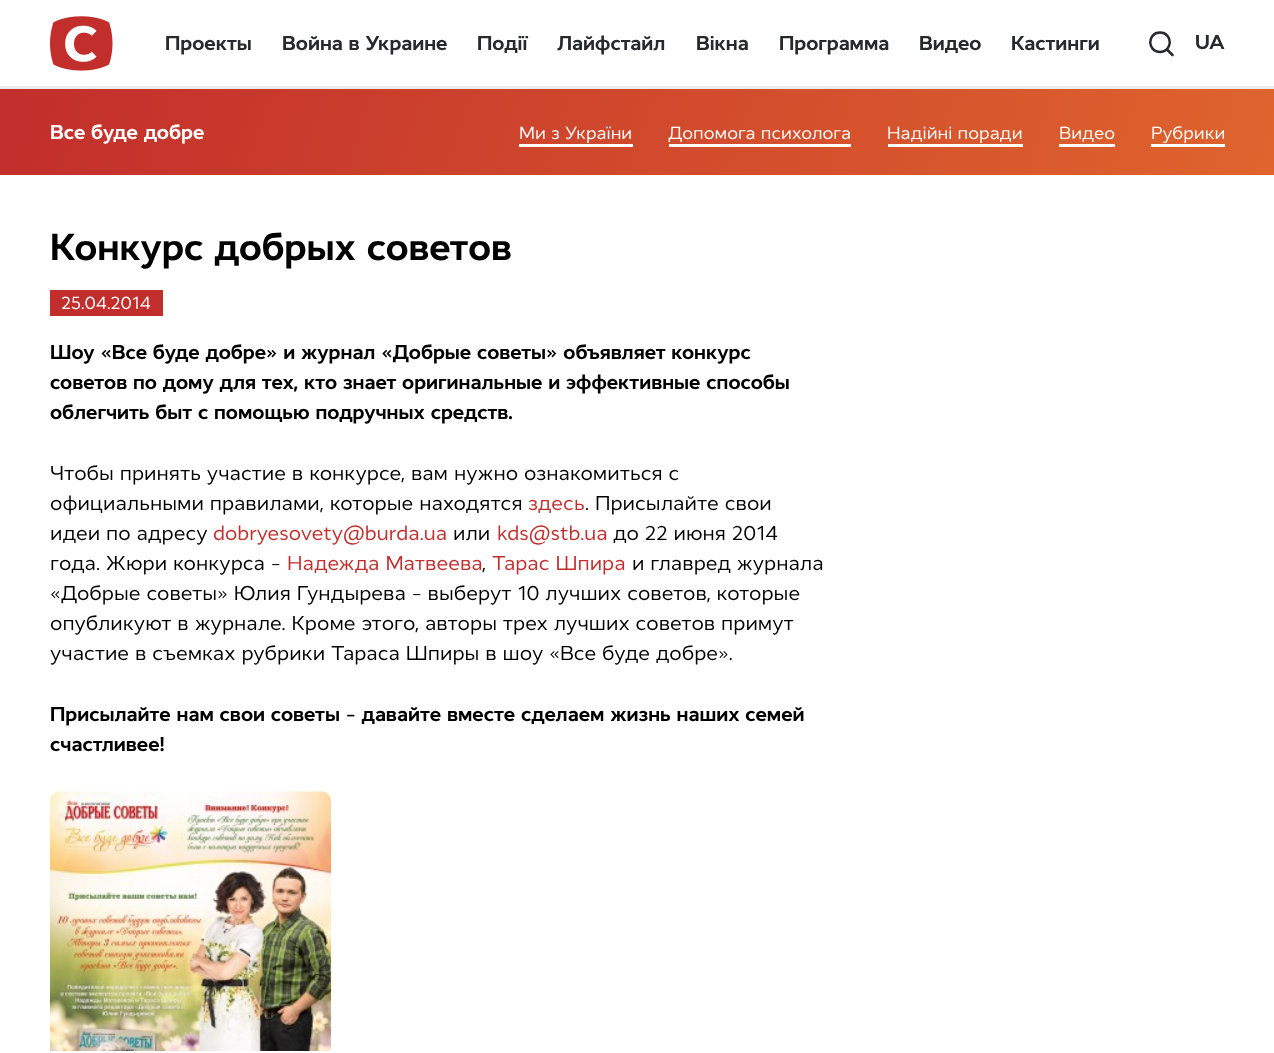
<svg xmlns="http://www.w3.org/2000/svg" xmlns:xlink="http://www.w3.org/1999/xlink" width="1274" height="1053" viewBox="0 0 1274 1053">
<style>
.cls-1{font:bold 20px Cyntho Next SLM;fill:#26292e}
.cls-2{font:bold 20px Cyntho Next SLM;fill:#ffffff}
.cls-3{font:17.5px Cyntho Next SLM;fill:#ffffff}
.cls-4{font:bold 37.5px Cyntho Next SLM;fill:#000000}
.cls-5{font:bold 20px Cyntho Next SLM;fill:#000000}
.cls-6{font:20px Cyntho Next SLM;fill:#000000}
.cls-7{font:20px Cyntho Next SLM;fill:#c22e2c}
</style>
<defs>
<linearGradient id="g1" gradientUnits="userSpaceOnUse" x1="48" y1="-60" x2="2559" y2="757"><stop offset="0" stop-color="#c22e2c"/><stop offset="1" stop-color="#ffa12e"/></linearGradient>
</defs>
<rect width="100%" height="100%" fill="#ffffff"/>
<rect fill="#ebebeb" x="0" y="86" width="1274" height="3"/>
<image xlink:href="image0.png" x="50" y="16" width="63" height="55"/>
<path fill="none" stroke="#26292e" stroke-width="2.5" stroke-linecap="round" stroke-linejoin="round" d="M1160 52C1173 52 1173 32.5 1160 32.5C1147 32.5 1147 52 1160 52ZM1167 49.5L1172.5 55"/>
<rect fill="url(#g1)" x="0" y="89" width="1274" height="86"/>
<rect fill="#ffffff" x="519" y="144" width="114" height="3"/>
<rect fill="#ffffff" x="669" y="144" width="182" height="3"/>
<rect fill="#ffffff" x="888" y="144" width="135" height="3"/>
<rect fill="#ffffff" x="1059" y="144" width="56" height="3"/>
<rect fill="#ffffff" x="1151" y="144" width="74" height="3"/>
<rect fill="#c22e2c" x="50" y="290" width="113" height="26"/>
<image xlink:href="image1.png" x="50" y="791" width="282" height="260"/>
<text class="cls-1" x="165" y="50">Проекты</text>
<text class="cls-1" x="282" y="50">Война в Украине</text>
<text class="cls-1" x="477" y="50">Події</text>
<text class="cls-1" x="557" y="50">Лайфстайл</text>
<text class="cls-1" x="696" y="50">Вікна</text>
<text class="cls-1" x="779" y="50">Программа</text>
<text class="cls-1" x="919" y="50">Видео</text>
<text class="cls-1" x="1011" y="50">Кастинги</text>
<text class="cls-1" x="1195" y="49">UA</text>
<text class="cls-2" x="50" y="139">Все буде добре</text>
<text class="cls-3" x="519" y="139">Ми з України</text>
<text class="cls-3" x="668" y="139">Допомога психолога</text>
<text class="cls-3" x="887" y="139">Надійні поради</text>
<text class="cls-3" x="1059" y="139">Видео</text>
<text class="cls-3" x="1151" y="139">Рубрики</text>
<text class="cls-4" x="50" y="260">Конкурс добрых советов</text>
<text class="cls-3" x="61" y="309">25.04.2014</text>
<text class="cls-5"><tspan x="50" y="359">Шоу «Все буде добре» и журнал «Добрые советы» объявляет конкурс</tspan><tspan x="50" y="389">советов по дому для тех, кто знает оригинальные и эффективные способы</tspan><tspan x="50" y="419">облегчить быт с помощью подручных средств.</tspan></text>
<text class="cls-6"><tspan x="50" y="480">Чтобы принять участие в конкурсе, вам нужно ознакомиться с</tspan><tspan x="50" y="510">официальными правилами, которые находятся</tspan></text>
<text class="cls-7" x="528" y="510">здесь</text>
<text class="cls-6" x="585" y="510">. Присылайте свои</text>
<text class="cls-6" x="50" y="540">идеи по адресу</text>
<text class="cls-7" x="213" y="540">dobryesovety@burda.ua</text>
<text class="cls-6" x="453" y="540">или</text>
<text class="cls-7" x="497" y="540">kds@stb.ua</text>
<text class="cls-6" x="613" y="540">до 22 июня 2014</text>
<text class="cls-6" x="50" y="570">года. Жюри конкурса –</text>
<text class="cls-7" x="287" y="570">Надежда Матвеева</text>
<text class="cls-6" x="482" y="570">,</text>
<text class="cls-7" x="492" y="570">Тарас Шпира</text>
<text class="cls-6" x="632" y="570">и главред журнала</text>
<text class="cls-6"><tspan x="50" y="600">«Добрые советы» Юлия Гундырева – выберут 10 лучших советов, которые</tspan><tspan x="50" y="630">опубликуют в журнале. Кроме этого, авторы трех лучших советов примут</tspan><tspan x="50" y="660">участие в съемках рубрики Тараса Шпиры в шоу «Все буде добре».</tspan></text>
<text class="cls-5"><tspan x="50" y="721">Присылайте нам свои советы – давайте вместе сделаем жизнь наших семей</tspan><tspan x="50" y="751">счастливее!</tspan></text>
</svg>
